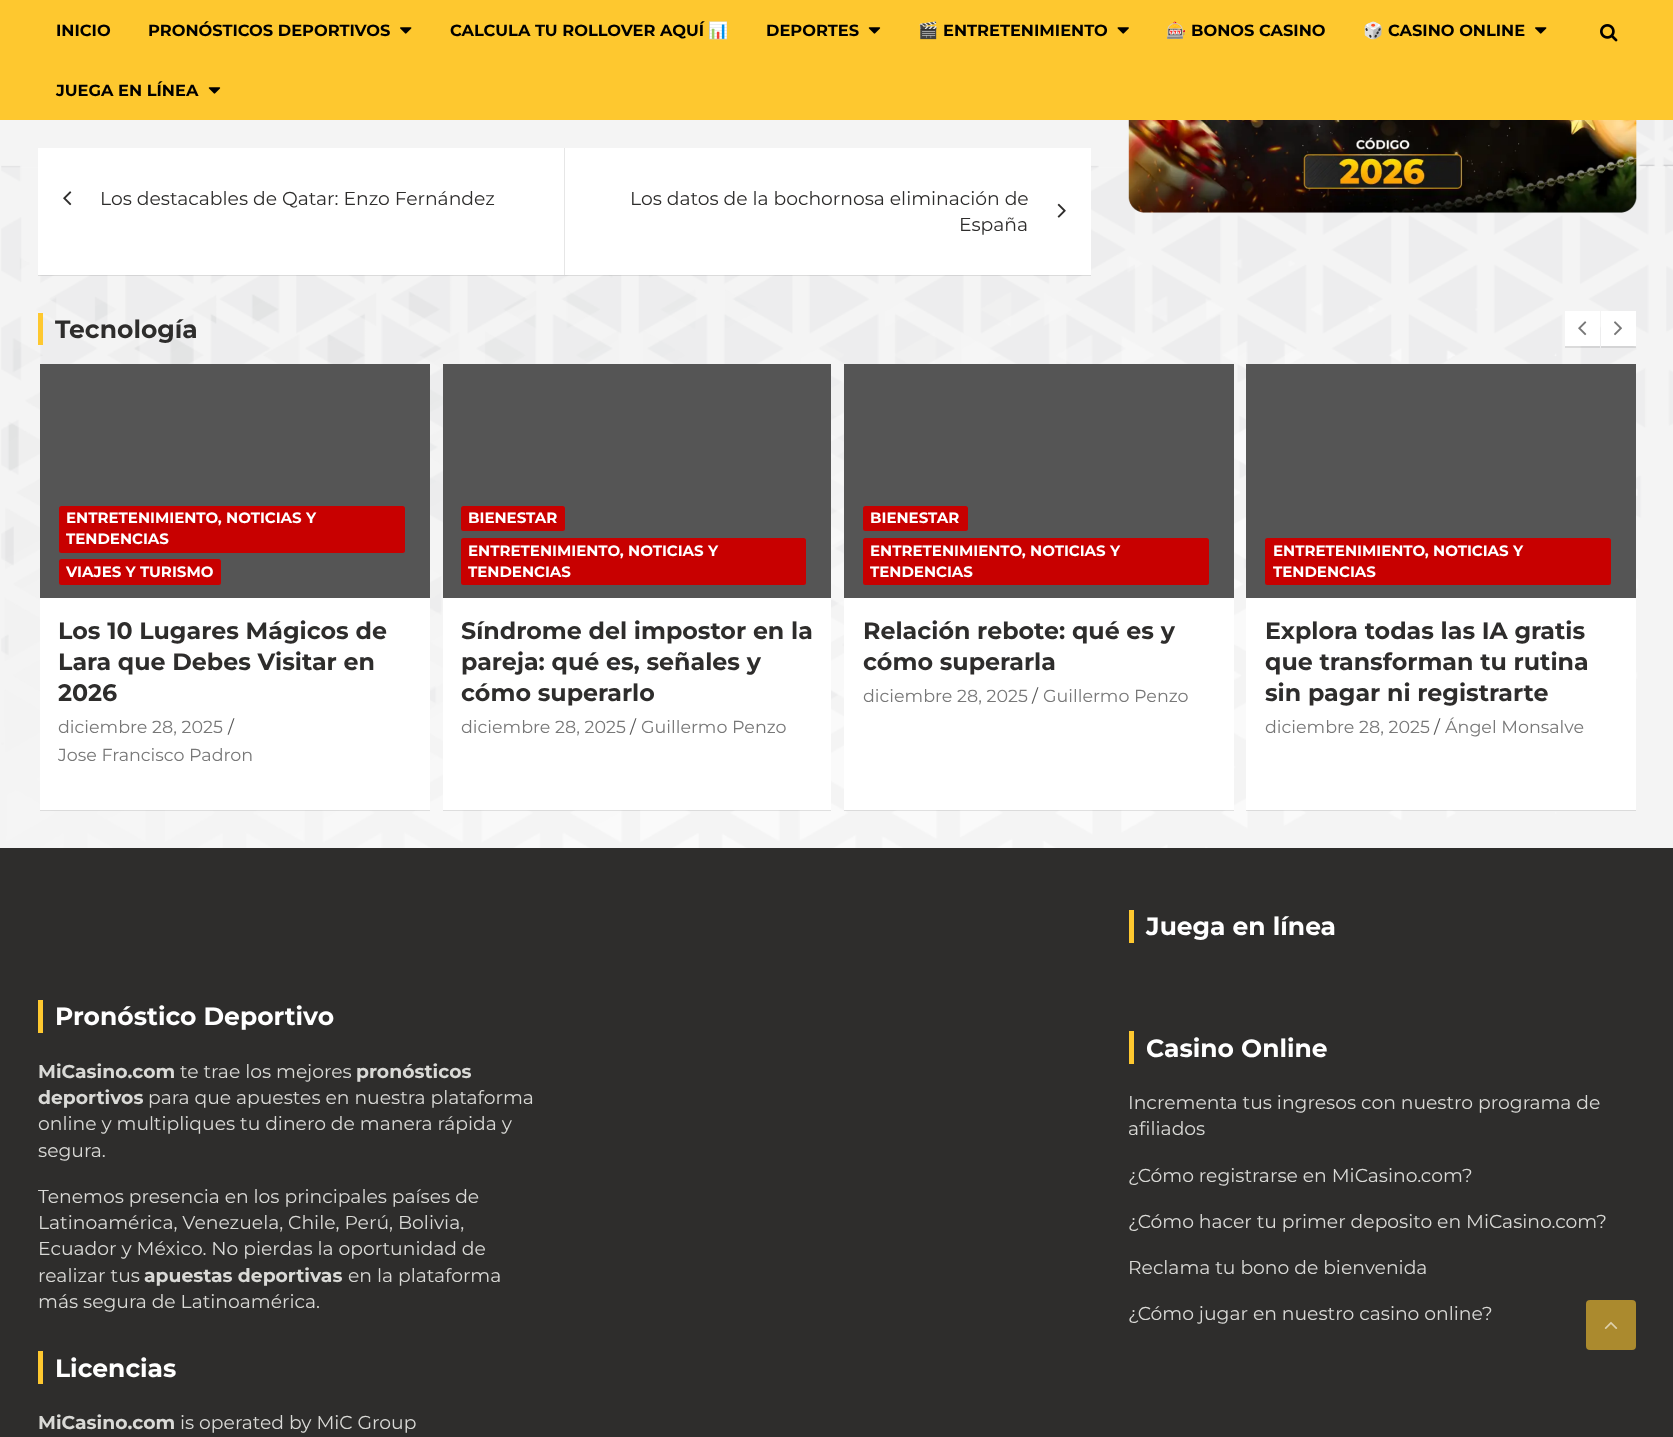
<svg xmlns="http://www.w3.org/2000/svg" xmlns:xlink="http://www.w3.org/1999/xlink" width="1673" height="1437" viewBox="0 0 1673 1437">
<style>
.cls-1{font:bold 16.25px Montserrat;fill:#000000}
.cls-2{font:bold 16.25px Noto Color Emoji;fill:#000000}
.cls-3{font:18.75px Montserrat;fill:#2e2d2c}
.cls-4{font:bold 25px Montserrat;fill:#2e2d2c}
.cls-5{font:bold 15px Montserrat;fill:#ffffff}
.cls-6{font:bold 23.75px Montserrat;fill:#2e2d2c}
.cls-7{font:17.5px Montserrat;fill:#777777}
.cls-8{font:17.5px Montserrat;fill:#555555}
.cls-9{font:bold 25px Montserrat;fill:#ffffff}
.cls-10{font:bold 18.75px Montserrat;fill:#d9d9d6}
.cls-11{font:18.75px Montserrat;fill:#d9d9d6}
</style>
<rect width="100%" height="100%" fill="#f4f4f4"/>
<image xlink:href="image0.png" x="1" y="120" width="1672" height="728"/>
<rect fill="#fec82f" x="0" y="0" width="1673" height="120"/>
<image xlink:href="image1.png" x="400" y="27" width="12" height="7"/>
<image xlink:href="image2.png" x="868" y="27" width="13" height="7"/>
<image xlink:href="image3.png" x="1117" y="27" width="12" height="7"/>
<image xlink:href="image1.png" x="1535" y="27" width="12" height="7"/>
<image xlink:href="image2.png" x="208" y="87" width="13" height="7"/>
<image xlink:href="image4.png" x="1600" y="24" width="18" height="18"/>
<rect fill="#000000" fill-opacity="0.1" filter="blur(0.5px)" x="38" y="149" width="1053" height="127"/>
<rect fill="#ffffff" x="38" y="148" width="1053" height="127"/>
<image xlink:href="image5.png" x="63" y="191" width="9" height="15"/>
<rect fill="#e6e6e6" x="564" y="148" width="1" height="127"/>
<image xlink:href="image6.png" x="1057" y="203" width="9" height="15"/>
<image xlink:href="image7.png" x="1128" y="120" width="509" height="93"/>
<rect fill="#fec82f" x="38" y="313" width="5" height="32"/>
<rect fill="#000000" fill-opacity="0.1" filter="blur(0.5px)" x="1565" y="313" width="35" height="35"/>
<rect fill="#ffffff" x="1565" y="311" width="35" height="35"/>
<image xlink:href="image8.png" x="1578" y="321" width="9" height="15"/>
<rect fill="#000000" fill-opacity="0.1" filter="blur(0.5px)" x="1601" y="313" width="35" height="35"/>
<rect fill="#ffffff" x="1601" y="311" width="35" height="35"/>
<image xlink:href="image9.png" x="1614" y="321" width="8" height="15"/>
<rect fill="#000000" fill-opacity="0.1" filter="blur(0.5px)" x="40" y="365" width="390" height="446"/>
<rect fill="#ffffff" x="40" y="598" width="390" height="212"/>
<rect fill="#555555" x="40" y="364" width="390" height="234"/>
<rect fill="#c80000" x="59" y="506" width="346" height="47" rx="2.5"/>
<rect fill="#c80000" x="59" y="559" width="162" height="26" rx="2.5"/>
<rect fill="#000000" fill-opacity="0.1" filter="blur(0.5px)" x="443" y="365" width="388" height="446"/>
<rect fill="#ffffff" x="443" y="598" width="388" height="212"/>
<rect fill="#555555" x="443" y="364" width="388" height="234"/>
<rect fill="#c80000" x="461" y="506" width="104" height="25" rx="2.5"/>
<rect fill="#c80000" x="461" y="538" width="345" height="47" rx="2.5"/>
<rect fill="#000000" fill-opacity="0.1" filter="blur(0.5px)" x="844" y="365" width="390" height="446"/>
<rect fill="#ffffff" x="844" y="598" width="390" height="212"/>
<rect fill="#555555" x="844" y="364" width="390" height="234"/>
<rect fill="#c80000" x="863" y="506" width="105" height="25" rx="2.5"/>
<rect fill="#c80000" x="863" y="538" width="346" height="47" rx="2.5"/>
<rect fill="#000000" fill-opacity="0.1" filter="blur(0.5px)" x="1246" y="365" width="390" height="446"/>
<rect fill="#ffffff" x="1246" y="598" width="390" height="212"/>
<rect fill="#555555" x="1246" y="364" width="390" height="234"/>
<rect fill="#c80000" x="1265" y="538" width="346" height="47" rx="2.5"/>
<rect fill="#2e2d2c" x="0" y="848" width="1673" height="589"/>
<rect fill="#fec82f" x="38" y="1000" width="5" height="33"/>
<rect fill="#fec82f" x="38" y="1351" width="5" height="33"/>
<rect fill="#fec82f" x="1129" y="910" width="5" height="33"/>
<rect fill="#fec82f" x="1129" y="1031" width="5" height="33"/>
<rect fill="#ab8a2e" x="1586" y="1300" width="50" height="50" rx="4"/>
<image xlink:href="image10.png" x="1604" y="1321" width="14" height="8"/>
<text class="cls-1" x="56" y="36">INICIO</text>
<text class="cls-1" x="148" y="36">PRONÓSTICOS DEPORTIVOS</text>
<text class="cls-1" x="450" y="36">CALCULA TU ROLLOVER AQUÍ</text>
<text class="cls-2" x="708" y="36">📊</text>
<text class="cls-1" x="766" y="36">DEPORTES</text>
<text class="cls-2" x="918" y="36">🎬</text>
<text class="cls-1" x="943" y="36">ENTRETENIMIENTO</text>
<text class="cls-2" x="1166" y="36">🎰</text>
<text class="cls-1" x="1191" y="36">BONOS CASINO</text>
<text class="cls-2" x="1363" y="36">🎲</text>
<text class="cls-1" x="1388" y="36">CASINO ONLINE</text>
<text class="cls-1" x="56" y="96">JUEGA EN LÍNEA</text>
<text class="cls-3" x="100" y="205">Los destacables de Qatar: Enzo Fernández</text>
<text class="cls-3" x="630" y="205">Los datos de la bochornosa eliminación de</text>
<text class="cls-3" x="959" y="231">España</text>
<text class="cls-4" x="55" y="338">Tecnología</text>
<text class="cls-5"><tspan x="66" y="523">ENTRETENIMIENTO, NOTICIAS Y</tspan><tspan x="66" y="544">TENDENCIAS</tspan></text>
<text class="cls-5" x="66" y="577">VIAJES Y TURISMO</text>
<text class="cls-6"><tspan x="58" y="639">Los 10 Lugares Mágicos de</tspan><tspan x="58" y="670">Lara que Debes Visitar en</tspan><tspan x="58" y="701">2026</tspan></text>
<text class="cls-7" x="58" y="733">diciembre 28, 2025</text>
<text class="cls-8" x="228" y="733">/</text>
<text class="cls-7" x="58" y="761">Jose Francisco Padron</text>
<text class="cls-5" x="468" y="523">BIENESTAR</text>
<text class="cls-5"><tspan x="468" y="556">ENTRETENIMIENTO, NOTICIAS Y</tspan><tspan x="468" y="577">TENDENCIAS</tspan></text>
<text class="cls-6"><tspan x="461" y="639">Síndrome del impostor en la</tspan><tspan x="461" y="670">pareja: qué es, señales y</tspan><tspan x="461" y="701">cómo superarlo</tspan></text>
<text class="cls-7" x="461" y="733">diciembre 28, 2025</text>
<text class="cls-8" x="630" y="733">/</text>
<text class="cls-7" x="641" y="733">Guillermo Penzo</text>
<text class="cls-5" x="870" y="523">BIENESTAR</text>
<text class="cls-5"><tspan x="870" y="556">ENTRETENIMIENTO, NOTICIAS Y</tspan><tspan x="870" y="577">TENDENCIAS</tspan></text>
<text class="cls-6"><tspan x="863" y="639">Relación rebote: qué es y</tspan><tspan x="863" y="670">cómo superarla</tspan></text>
<text class="cls-7" x="863" y="702">diciembre 28, 2025</text>
<text class="cls-8" x="1032" y="702">/</text>
<text class="cls-7" x="1043" y="702">Guillermo Penzo</text>
<text class="cls-5"><tspan x="1273" y="556">ENTRETENIMIENTO, NOTICIAS Y</tspan><tspan x="1273" y="577">TENDENCIAS</tspan></text>
<text class="cls-6"><tspan x="1265" y="639">Explora todas las IA gratis</tspan><tspan x="1265" y="670">que transforman tu rutina</tspan><tspan x="1265" y="701">sin pagar ni registrarte</tspan></text>
<text class="cls-7" x="1265" y="733">diciembre 28, 2025</text>
<text class="cls-8" x="1434" y="733">/</text>
<text class="cls-7" x="1445" y="733">Ángel Monsalve</text>
<text class="cls-9" x="55" y="1025">Pronóstico Deportivo</text>
<text class="cls-10" x="38" y="1078">MiCasino.com</text>
<text class="cls-11" x="180" y="1078">te trae los mejores</text>
<text class="cls-10" x="356" y="1078">pronósticos</text>
<text class="cls-10" x="38" y="1104">deportivos</text>
<text class="cls-11" x="148" y="1104">para que apuestes en nuestra plataforma</text>
<text class="cls-11"><tspan x="38" y="1130">online y multipliques tu dinero de manera rápida y</tspan><tspan x="38" y="1157">segura.</tspan></text>
<text class="cls-11"><tspan x="38" y="1203">Tenemos presencia en los principales países de</tspan><tspan x="38" y="1229">Latinoamérica, Venezuela, Chile, Perú, Bolivia,</tspan><tspan x="38" y="1255">Ecuador y México. No pierdas la oportunidad de</tspan><tspan x="38" y="1282">realizar tus</tspan></text>
<text class="cls-10" x="144" y="1282">apuestas deportivas</text>
<text class="cls-11" x="348" y="1282">en la plataforma</text>
<text class="cls-11" x="38" y="1308">más segura de Latinoamérica.</text>
<text class="cls-9" x="55" y="1377">Licencias</text>
<text class="cls-10" x="38" y="1429">MiCasino.com</text>
<text class="cls-11" x="180" y="1429">is operated by MiC Group</text>
<text class="cls-9" x="1146" y="935">Juega en línea</text>
<text class="cls-9" x="1146" y="1057">Casino Online</text>
<text class="cls-11"><tspan x="1128" y="1109">Incrementa tus ingresos con nuestro programa de</tspan><tspan x="1128" y="1135">afiliados</tspan></text>
<text class="cls-11" x="1128" y="1182">¿Cómo registrarse en MiCasino.com?</text>
<text class="cls-11" x="1128" y="1228">¿Cómo hacer tu primer deposito en MiCasino.com?</text>
<text class="cls-11" x="1128" y="1274">Reclama tu bono de bienvenida</text>
<text class="cls-11" x="1128" y="1320">¿Cómo jugar en nuestro casino online?</text>
</svg>
